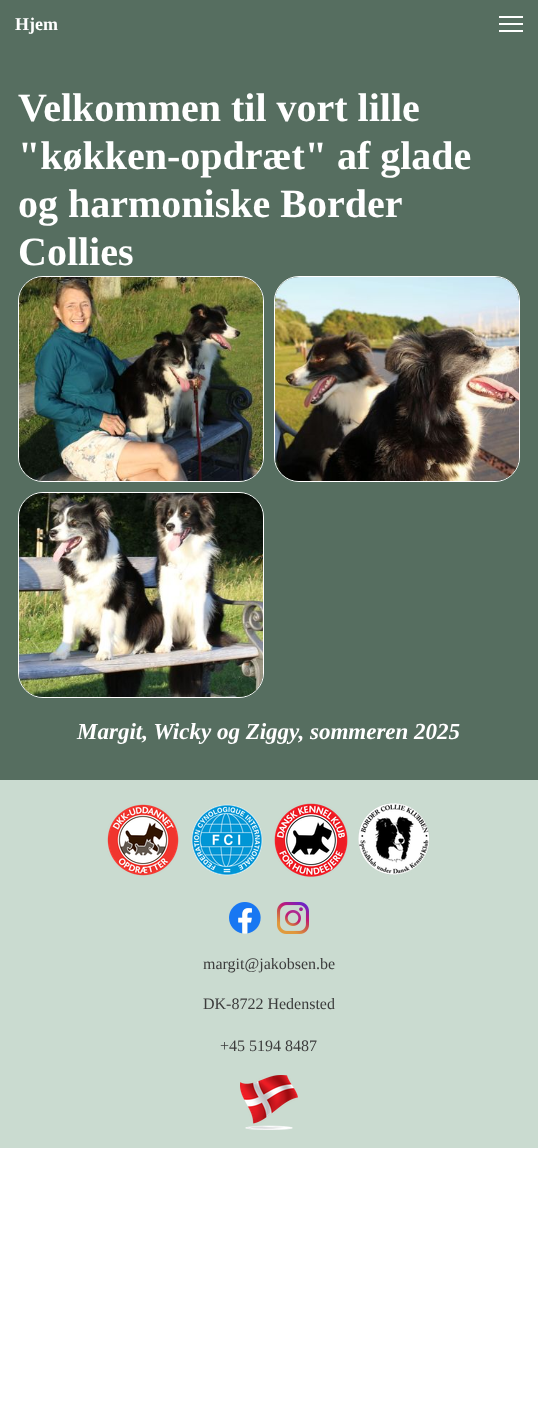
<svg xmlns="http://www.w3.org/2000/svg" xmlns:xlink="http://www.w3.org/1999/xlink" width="538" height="1406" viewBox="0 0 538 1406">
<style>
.cls-1{font:bold 18px Liberation Serif;fill:#ffffff}
.cls-2{font:bold 40px Liberation Serif;fill:#ffffff}
.cls-3{font:italic bold 23px Liberation Serif;fill:#ffffff}
.cls-4{font:16px Liberation Serif;fill:#3c3c3c}
</style>
<rect width="100%" height="100%" fill="#ffffff"/>
<rect fill="#566e60" x="0" y="0" width="538" height="780"/>
<rect fill="#ffffff" x="499" y="16" width="24" height="2"/>
<rect fill="#ffffff" x="499" y="23" width="24" height="2"/>
<rect fill="#ffffff" x="499" y="30" width="24" height="2"/>
<rect fill="none" stroke="#ffffff" x="18.5" y="276.5" width="245" height="205" rx="24.5"/>
<image xlink:href="image0.png" x="19" y="277" width="244" height="204"/>
<rect fill="none" stroke="#ffffff" x="274.5" y="276.5" width="245" height="205" rx="24.5"/>
<image xlink:href="image1.png" x="275" y="277" width="244" height="204"/>
<rect fill="none" stroke="#ffffff" x="18.5" y="492.5" width="245" height="205" rx="24.5"/>
<image xlink:href="image2.png" x="19" y="493" width="244" height="204"/>
<rect fill="#cadbd0" x="0" y="780" width="538" height="368"/>
<image xlink:href="image3.png" x="107" y="804" width="72" height="72"/>
<image xlink:href="image4.png" x="191" y="804" width="72" height="72"/>
<image xlink:href="image5.png" x="274" y="803" width="74" height="74"/>
<image xlink:href="image6.png" x="358" y="803" width="72" height="72"/>
<image xlink:href="image7.png" x="229" y="902" width="32" height="32"/>
<image xlink:href="image8.png" x="277" y="902" width="32" height="32"/>
<image xlink:href="image9.png" x="240" y="1075" width="58" height="55"/>
<text class="cls-1" x="15" y="30">Hjem</text>
<text class="cls-2"><tspan x="18" y="121">Velkommen til vort lille</tspan><tspan x="18" y="169">"køkken-opdræt" af glade</tspan><tspan x="18" y="217">og harmoniske Border</tspan><tspan x="18" y="265">Collies</tspan></text>
<text class="cls-3" x="77" y="739">Margit, Wicky og Ziggy, sommeren 2025</text>
<text class="cls-4" x="203" y="969">margit@jakobsen.be</text>
<text class="cls-4" x="203" y="1009">DK-8722 Hedensted</text>
<text class="cls-4" x="220" y="1051">+45 5194 8487</text>
</svg>
